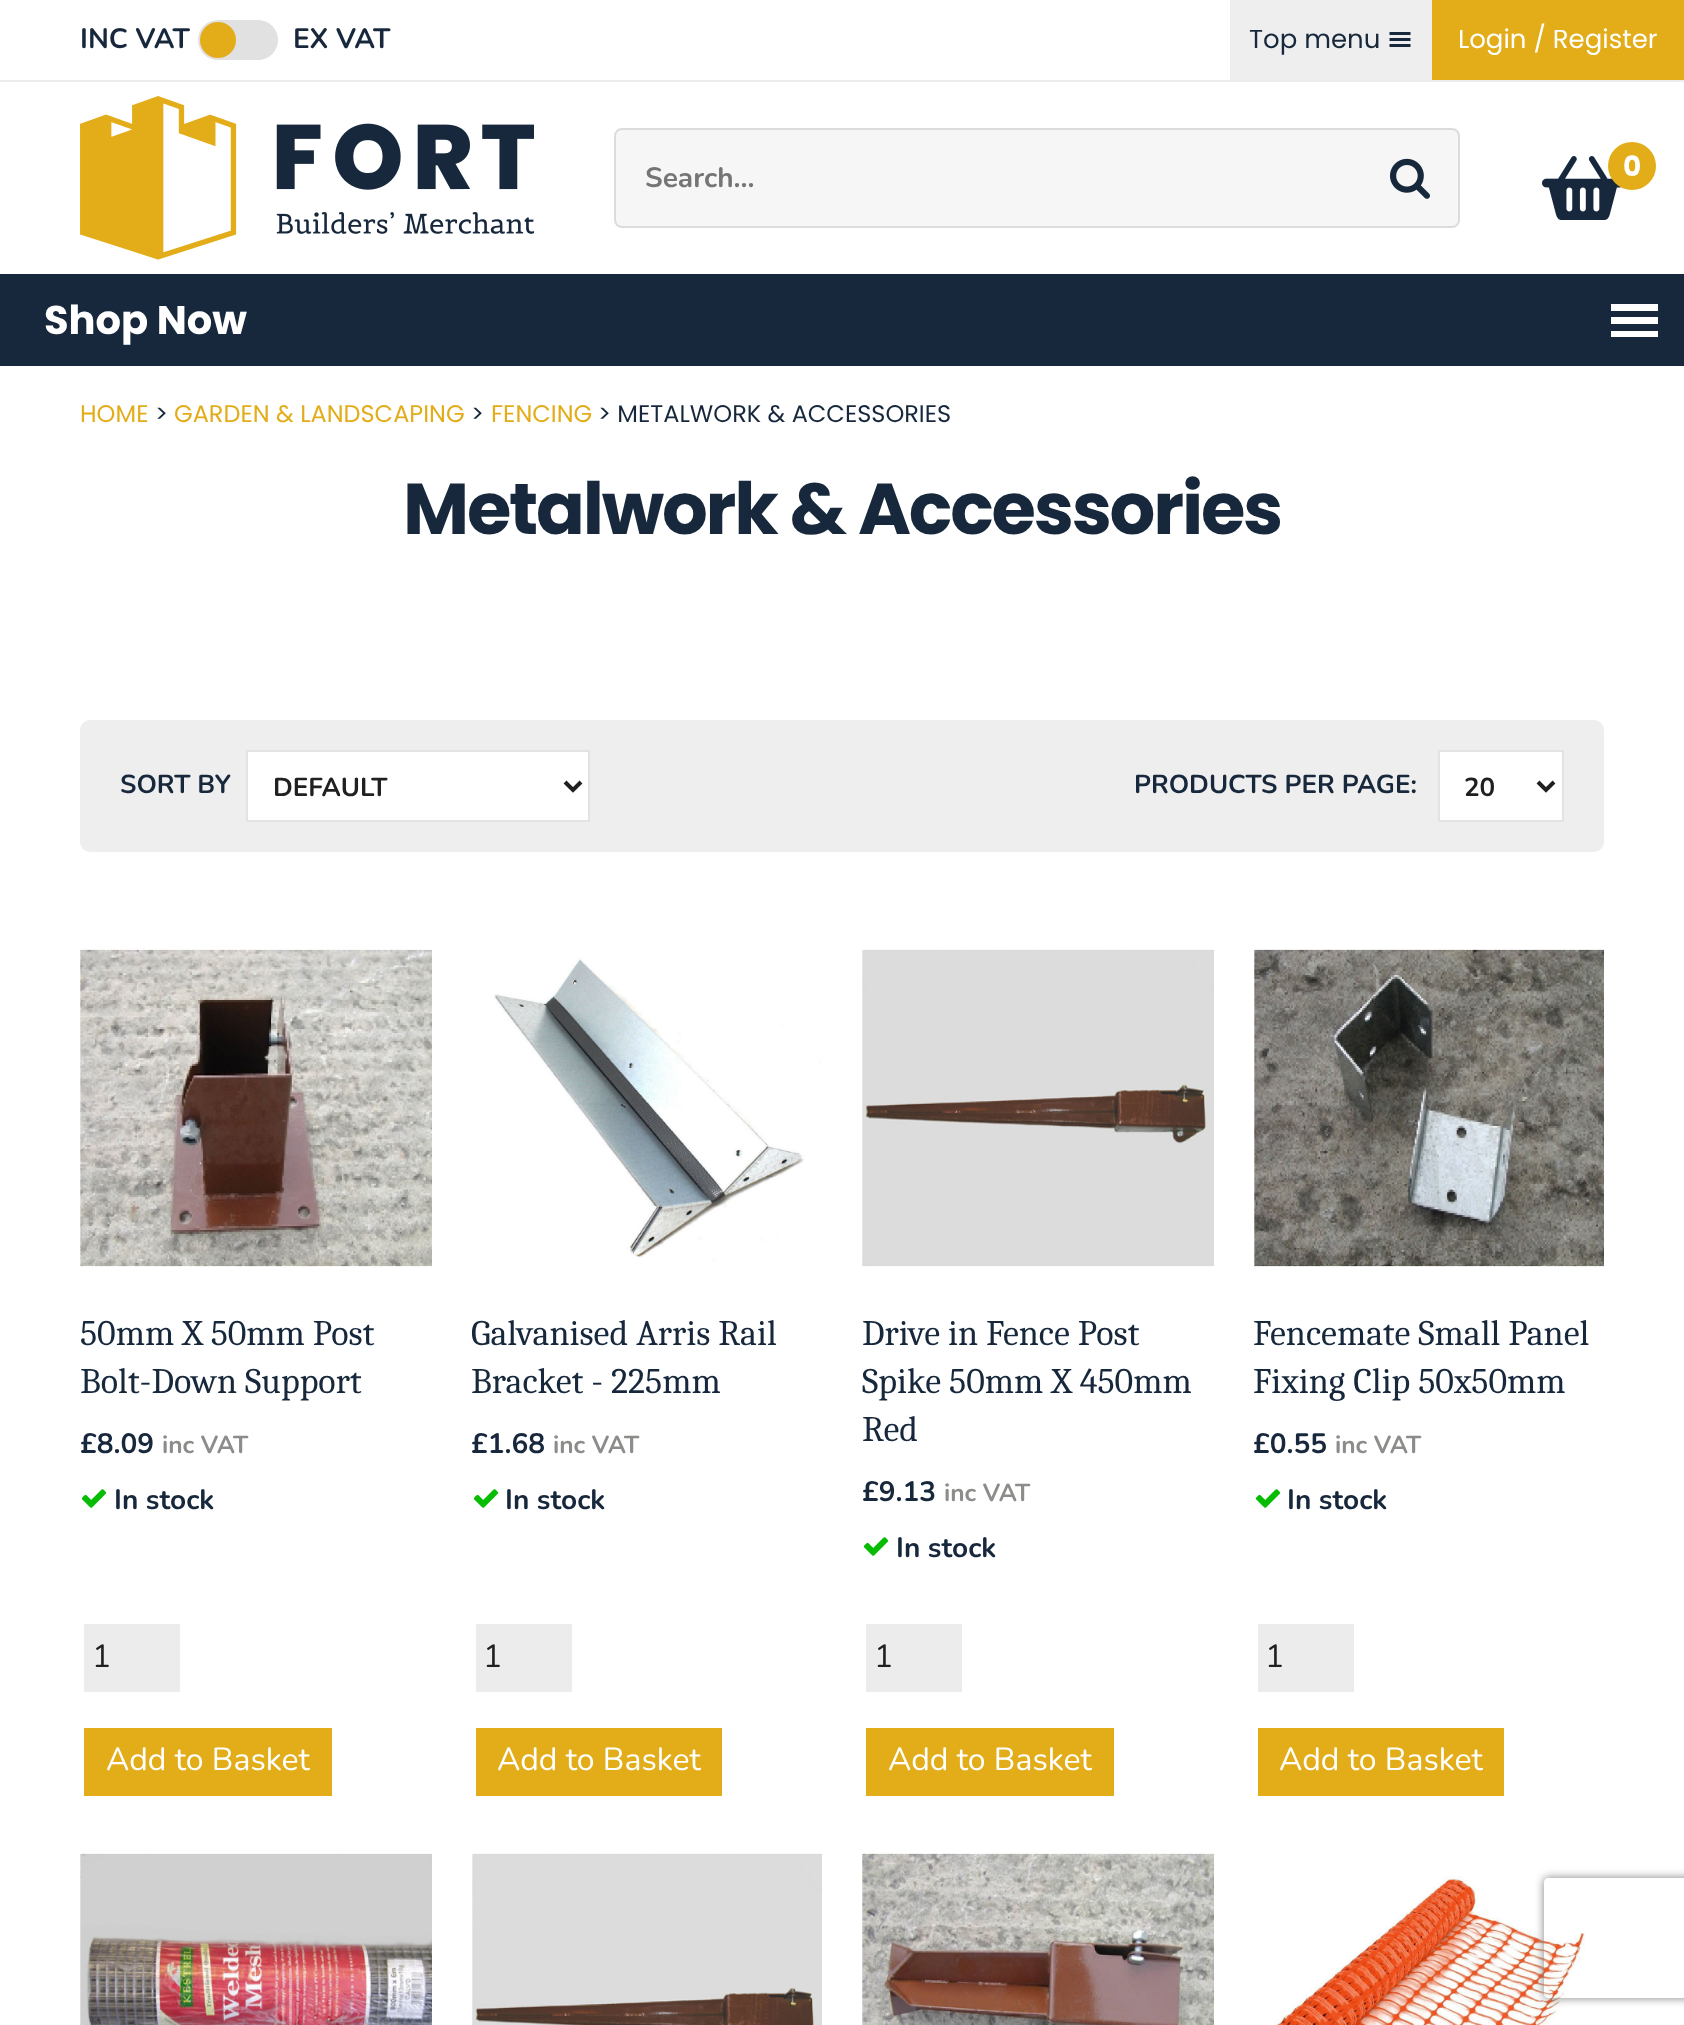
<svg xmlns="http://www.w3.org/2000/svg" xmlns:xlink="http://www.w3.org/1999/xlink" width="1684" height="2025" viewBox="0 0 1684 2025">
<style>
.cls-1{font:bold 28px Nunito;fill:#17283c}
.cls-2{font:26px Poppins;fill:#17283c}
.cls-3{font:26px Poppins;fill:#ffffff}
.cls-4{font:bold 28px Nunito;fill:#757575}
.cls-5{font:bold 28px Poppins;fill:#ffffff}
.cls-6{font:bold 40px Poppins;fill:#ffffff}
.cls-7{font:24px Poppins;fill:#e2ad19}
.cls-8{font:24px Poppins;fill:#17283c}
.cls-9{font:bold 72px Poppins;letter-spacing:-2.2px;fill:#17283c}
.cls-10{font:bold 26px Nunito;fill:#17283c}
.cls-11{font:bold 26px Nunito;fill:#202020}
.cls-12{font:36px Caladea;fill:#17283c}
.cls-13{font:bold 24.5px Nunito;fill:#8d8c8a}
.cls-14{font:32px Nunito;fill:#202020}
.cls-15{font:32px Nunito;fill:#ffffff}
</style>
<defs>
<clipPath id="clip1"><path d="M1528 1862H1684V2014H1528ZM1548 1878H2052C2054 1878 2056 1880 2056 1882V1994C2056 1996 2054 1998 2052 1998H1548C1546 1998 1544 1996 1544 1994V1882C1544 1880 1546 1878 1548 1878Z" clip-rule="evenodd"/></clipPath>
</defs>
<rect width="100%" height="100%" fill="#ffffff"/>
<rect fill="#ededed" x="0" y="80" width="1684" height="2"/>
<rect fill="#e1e1e1" x="198" y="20" width="80" height="40" rx="20"/>
<circle fill="#e2ad19" cx="218" cy="40" r="18"/>
<rect fill="#efeeee" x="1230" y="0" width="202" height="80"/>
<image xlink:href="image0.png" x="1389" y="32" width="22" height="15"/>
<rect fill="#e2ad19" x="1432" y="0" width="252" height="80"/>
<image xlink:href="image1.png" x="80" y="96" width="454" height="164"/>
<rect fill="#f6f6f6" stroke="#dcdcdc" stroke-width="2" x="615" y="129" width="844" height="98" rx="7"/>
<image xlink:href="image2.png" x="1390" y="158" width="40" height="41"/>
<image xlink:href="image3.png" x="1542" y="156" width="80" height="64"/>
<circle fill="#e2ad19" cx="1632" cy="166" r="24"/>
<rect fill="#17283c" x="0" y="274" width="1684" height="92"/>
<path fill="#ffffff" d="M1611 304H1658V311H1611ZM1611 317H1658V324H1611ZM1611 331H1658V337H1611Z"/>
<rect fill="#efeeee" x="80" y="720" width="1524" height="132" rx="10"/>
<rect fill="#ffffff" stroke="#e3e3e3" stroke-width="2" x="247" y="751" width="342" height="70"/>
<path fill="none" stroke="#202020" stroke-width="4" d="M565 782L573 790L581 782"/>
<rect fill="#ffffff" stroke="#e3e3e3" stroke-width="2" x="1439" y="751" width="124" height="70"/>
<path fill="none" stroke="#202020" stroke-width="4" d="M1538 782L1546 790L1554 782"/>
<image xlink:href="image4.png" x="80" y="949" width="352" height="318"/>
<image xlink:href="image5.png" x="81" y="1489" width="26" height="19"/>
<rect fill="#ececec" stroke="#ececec" stroke-width="2" x="85" y="1625" width="94" height="66"/>
<rect fill="#e2ad19" stroke="#e2ad19" stroke-width="2" x="85" y="1729" width="246" height="66"/>
<image xlink:href="image6.png" x="494" y="957" width="327" height="304"/>
<image xlink:href="image5.png" x="473" y="1489" width="26" height="19"/>
<rect fill="#ececec" stroke="#ececec" stroke-width="2" x="477" y="1625" width="94" height="66"/>
<rect fill="#e2ad19" stroke="#e2ad19" stroke-width="2" x="477" y="1729" width="244" height="66"/>
<image xlink:href="image7.png" x="862" y="949" width="352" height="318"/>
<image xlink:href="image5.png" x="863" y="1537" width="26" height="19"/>
<rect fill="#ececec" stroke="#ececec" stroke-width="2" x="867" y="1625" width="94" height="66"/>
<rect fill="#e2ad19" stroke="#e2ad19" stroke-width="2" x="867" y="1729" width="246" height="66"/>
<image xlink:href="image8.png" x="1254" y="949" width="350" height="318"/>
<image xlink:href="image5.png" x="1255" y="1489" width="26" height="19"/>
<rect fill="#ececec" stroke="#ececec" stroke-width="2" x="1259" y="1625" width="94" height="66"/>
<rect fill="#e2ad19" stroke="#e2ad19" stroke-width="2" x="1259" y="1729" width="244" height="66"/>
<image xlink:href="image9.png" x="80" y="1853" width="352" height="172"/>
<image xlink:href="image10.png" x="472" y="1853" width="350" height="172"/>
<image xlink:href="image11.png" x="862" y="1853" width="352" height="172"/>
<image xlink:href="image12.png" x="1273" y="1876" width="312" height="149"/>
<g clip-path="url(#clip1)">
<rect fill="#808080" filter="blur(5px)" x="1544" y="1878" width="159" height="120" rx="4"/>
</g>
<text class="cls-1" x="80" y="48">INC VAT</text>
<text class="cls-1" x="293" y="48">EX VAT</text>
<text class="cls-2" x="1249" y="48">Top menu</text>
<text class="cls-3" x="1458" y="48">Login / Register</text>
<text class="cls-4" x="645" y="187">Search...</text>
<text class="cls-5" x="1623" y="176">0</text>
<text class="cls-6" x="44" y="334">Shop Now</text>
<text class="cls-7" x="80" y="422">HOME</text>
<text class="cls-8" x="155" y="422">&gt;</text>
<text class="cls-7" x="174" y="422">GARDEN &amp; LANDSCAPING</text>
<text class="cls-8" x="471" y="422">&gt;</text>
<text class="cls-7" x="491" y="422">FENCING</text>
<text class="cls-8" x="598" y="422">&gt; METALWORK &amp; ACCESSORIES</text>
<text class="cls-9" x="403" y="534">Metalwork &amp; Accessories</text>
<text class="cls-10" x="120" y="793">SORT BY</text>
<text class="cls-11" x="273" y="796">DEFAULT</text>
<text class="cls-10" x="1134" y="793">PRODUCTS PER PAGE:</text>
<text class="cls-11" x="1464" y="796">20</text>
<text class="cls-12"><tspan x="80" y="1345">50mm X 50mm Post</tspan><tspan x="80" y="1393">Bolt-Down Support</tspan></text>
<text class="cls-1" x="80" y="1453">£8.09</text>
<text class="cls-13" x="162" y="1453">inc VAT</text>
<text class="cls-1" x="114" y="1509">In stock</text>
<text class="cls-14" x="92" y="1667">1</text>
<text class="cls-15" x="106" y="1770">Add to Basket</text>
<text class="cls-12"><tspan x="471" y="1345">Galvanised Arris Rail</tspan><tspan x="471" y="1393">Bracket - 225mm</tspan></text>
<text class="cls-1" x="471" y="1453">£1.68</text>
<text class="cls-13" x="553" y="1453">inc VAT</text>
<text class="cls-1" x="505" y="1509">In stock</text>
<text class="cls-14" x="483" y="1667">1</text>
<text class="cls-15" x="497" y="1770">Add to Basket</text>
<text class="cls-12"><tspan x="862" y="1345">Drive in Fence Post</tspan><tspan x="862" y="1393">Spike 50mm X 450mm</tspan><tspan x="862" y="1441">Red</tspan></text>
<text class="cls-1" x="862" y="1501">£9.13</text>
<text class="cls-13" x="944" y="1501">inc VAT</text>
<text class="cls-1" x="896" y="1557">In stock</text>
<text class="cls-14" x="874" y="1667">1</text>
<text class="cls-15" x="888" y="1770">Add to Basket</text>
<text class="cls-12"><tspan x="1253" y="1345">Fencemate Small Panel</tspan><tspan x="1253" y="1393">Fixing Clip 50x50mm</tspan></text>
<text class="cls-1" x="1253" y="1453">£0.55</text>
<text class="cls-13" x="1335" y="1453">inc VAT</text>
<text class="cls-1" x="1287" y="1509">In stock</text>
<text class="cls-14" x="1265" y="1667">1</text>
<text class="cls-15" x="1279" y="1770">Add to Basket</text>
</svg>
